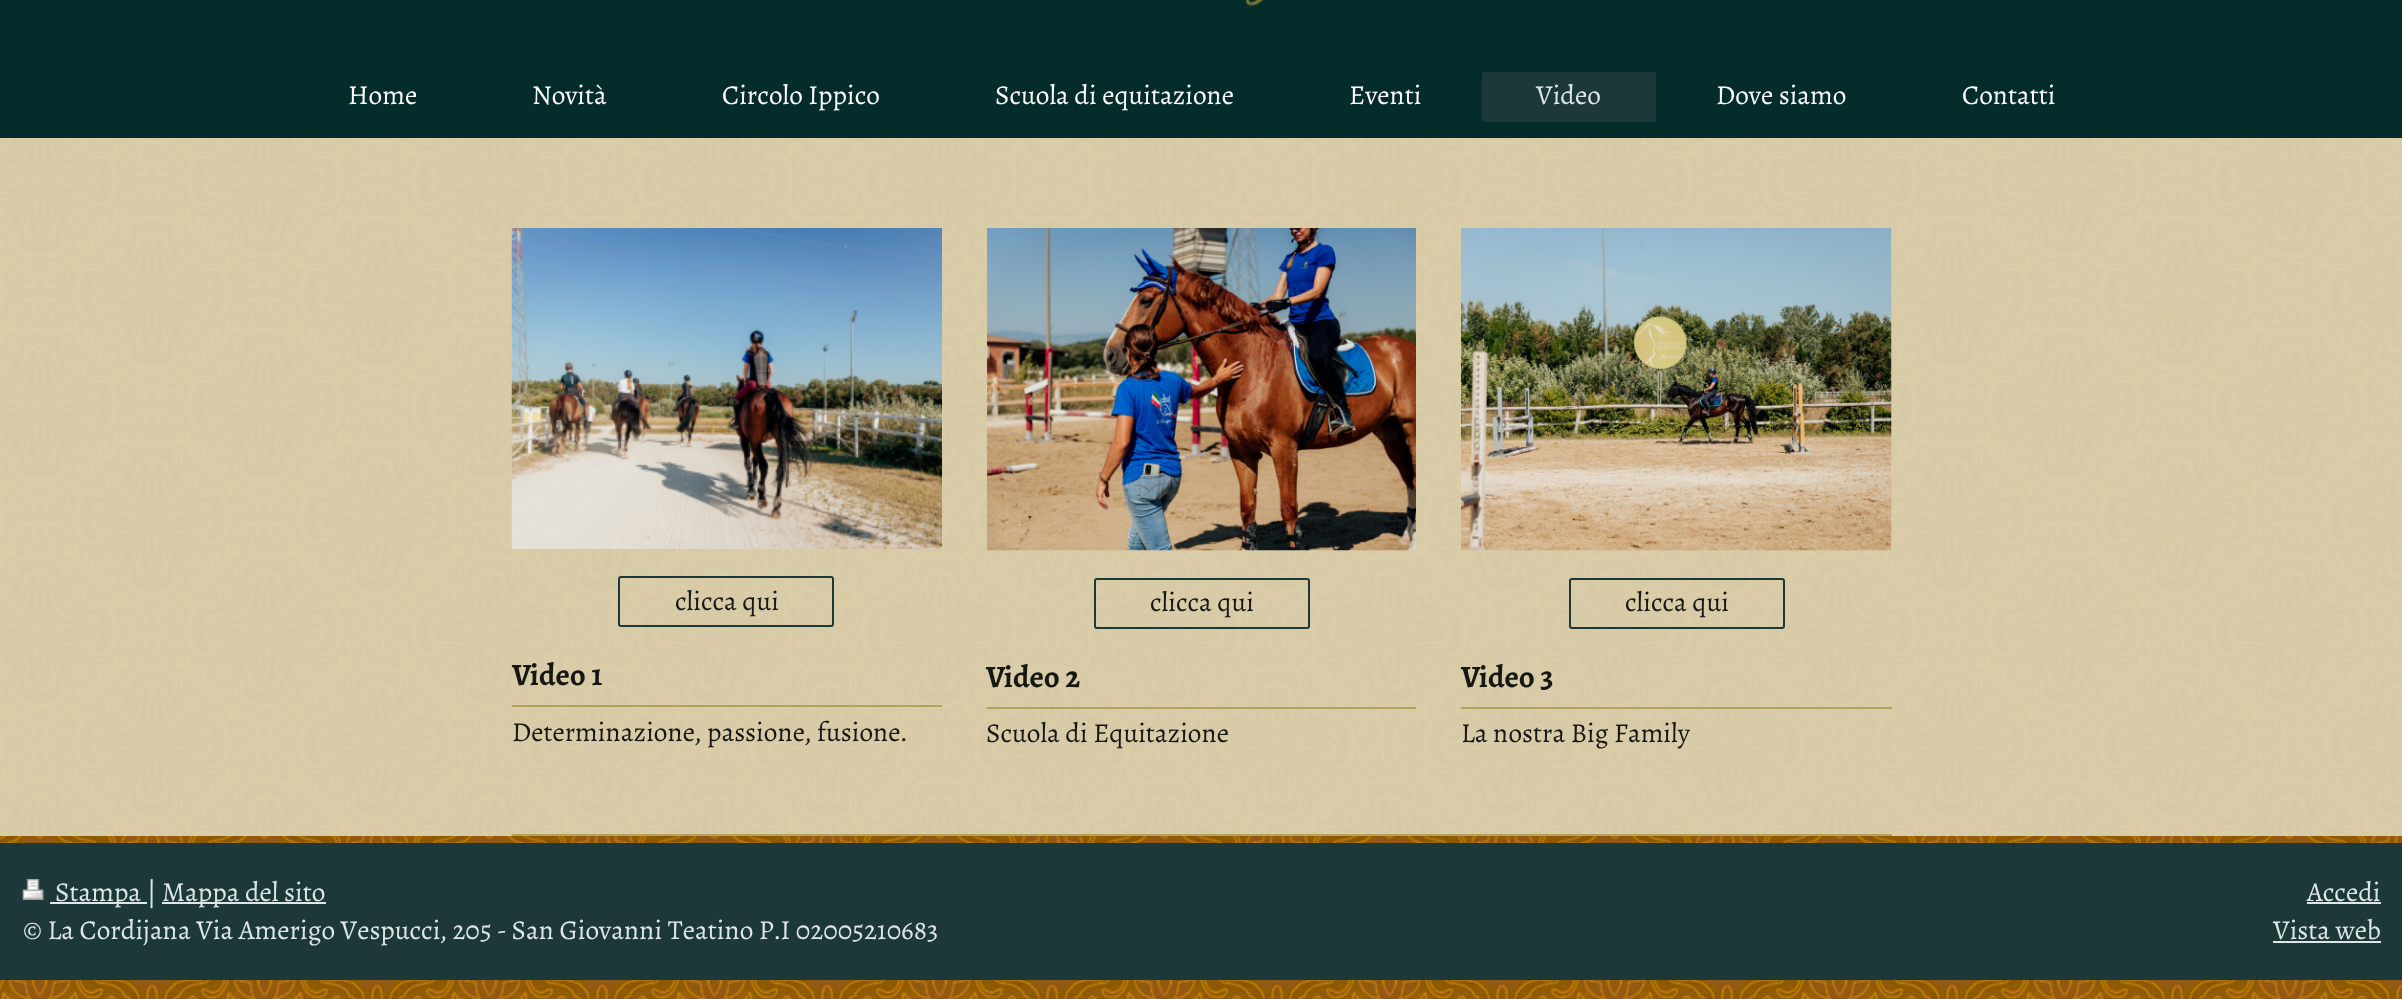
<svg xmlns="http://www.w3.org/2000/svg" xmlns:xlink="http://www.w3.org/1999/xlink" width="2402" height="999" viewBox="0 0 2402 999">
<style>
.cls-1{font:27.3px Alegreya;fill:#ffffff}
.cls-2{font:27.3px Alegreya;fill:#dee6e6}
.cls-3{font:27.3px Alegreya;fill:#161613}
.cls-4{font:bold 31px Alegreya;fill:#161613}
</style>
<rect width="100%" height="100%" fill="#ffffff"/>
<image xlink:href="image0.png" x="0" y="138" width="2402" height="861"/>
<rect fill="#042c2b" x="0" y="0" width="2402" height="138"/>
<image xlink:href="image1.png" x="1245" y="0" width="21" height="15"/>
<rect fill="#1c3838" x="1482" y="72" width="174" height="50" rx="3"/>
<rect fill="#1c3838" x="1654" y="121" width="1" height="1"/>
<rect fill="#dfd7b9" fill-opacity="0.9" x="0" y="138" width="2402" height="698"/>
<image xlink:href="image2.png" x="511" y="228" width="431" height="321"/>
<rect fill="none" stroke="#1c3838" stroke-width="2" x="619" y="577" width="214" height="49" rx="2"/>
<rect fill="#b4a15b" x="512" y="705" width="430" height="2"/>
<image xlink:href="image3.png" x="987" y="228" width="429" height="323"/>
<rect fill="none" stroke="#1c3838" stroke-width="2" x="1095" y="579" width="214" height="49" rx="2"/>
<rect fill="#b4a15b" x="987" y="707" width="429" height="2"/>
<image xlink:href="image4.png" x="1461" y="228" width="431" height="323"/>
<rect fill="none" stroke="#1c3838" stroke-width="2" x="1570" y="579" width="214" height="49" rx="2"/>
<rect fill="#b4a15b" x="1461" y="707" width="431" height="2"/>
<rect fill="#b4a15b" x="512" y="834" width="1380" height="2"/>
<rect fill="#1c3838" x="0" y="843" width="2402" height="137"/>
<image xlink:href="image5.png" x="22" y="879" width="22" height="21"/>
<rect fill="#dee6e6" x="50" y="902" width="97" height="2"/>
<rect fill="#dee6e6" x="162" y="902" width="164" height="2"/>
<rect fill="#dee6e6" x="2307" y="902" width="74" height="2"/>
<rect fill="#dee6e6" x="2273" y="941" width="108" height="2"/>
<text class="cls-1" x="348" y="104">Home</text>
<text class="cls-1" x="532" y="104">Novità</text>
<text class="cls-1" x="722" y="104">Circolo Ippico</text>
<text class="cls-1" x="995" y="104">Scuola di equitazione</text>
<text class="cls-1" x="1349" y="104">Eventi</text>
<text class="cls-2" x="1536" y="104">Video</text>
<text class="cls-1" x="1716" y="104">Dove siamo</text>
<text class="cls-1" x="1962" y="104">Contatti</text>
<text class="cls-3" x="675" y="610">clicca qui</text>
<text class="cls-4" x="512" y="685">Video 1</text>
<text class="cls-3" x="512" y="741">Determinazione, passione, fusione.</text>
<text class="cls-3" x="1150" y="611">clicca qui</text>
<text class="cls-4" x="986" y="687">Video 2</text>
<text class="cls-3" x="986" y="742">Scuola di Equitazione</text>
<text class="cls-3" x="1625" y="611">clicca qui</text>
<text class="cls-4" x="1461" y="687">Video 3</text>
<text class="cls-3" x="1461" y="742">La nostra Big Family</text>
<text class="cls-2" x="55" y="901">Stampa |</text>
<text class="cls-2" x="162" y="901">Mappa del sito</text>
<text class="cls-2" x="23" y="939">© La Cordijana Via Amerigo Vespucci, 205 - San Giovanni Teatino P.I 02005210683</text>
<text class="cls-2" x="2307" y="901">Accedi</text>
<text class="cls-2" x="2273" y="939">Vista web</text>
</svg>
